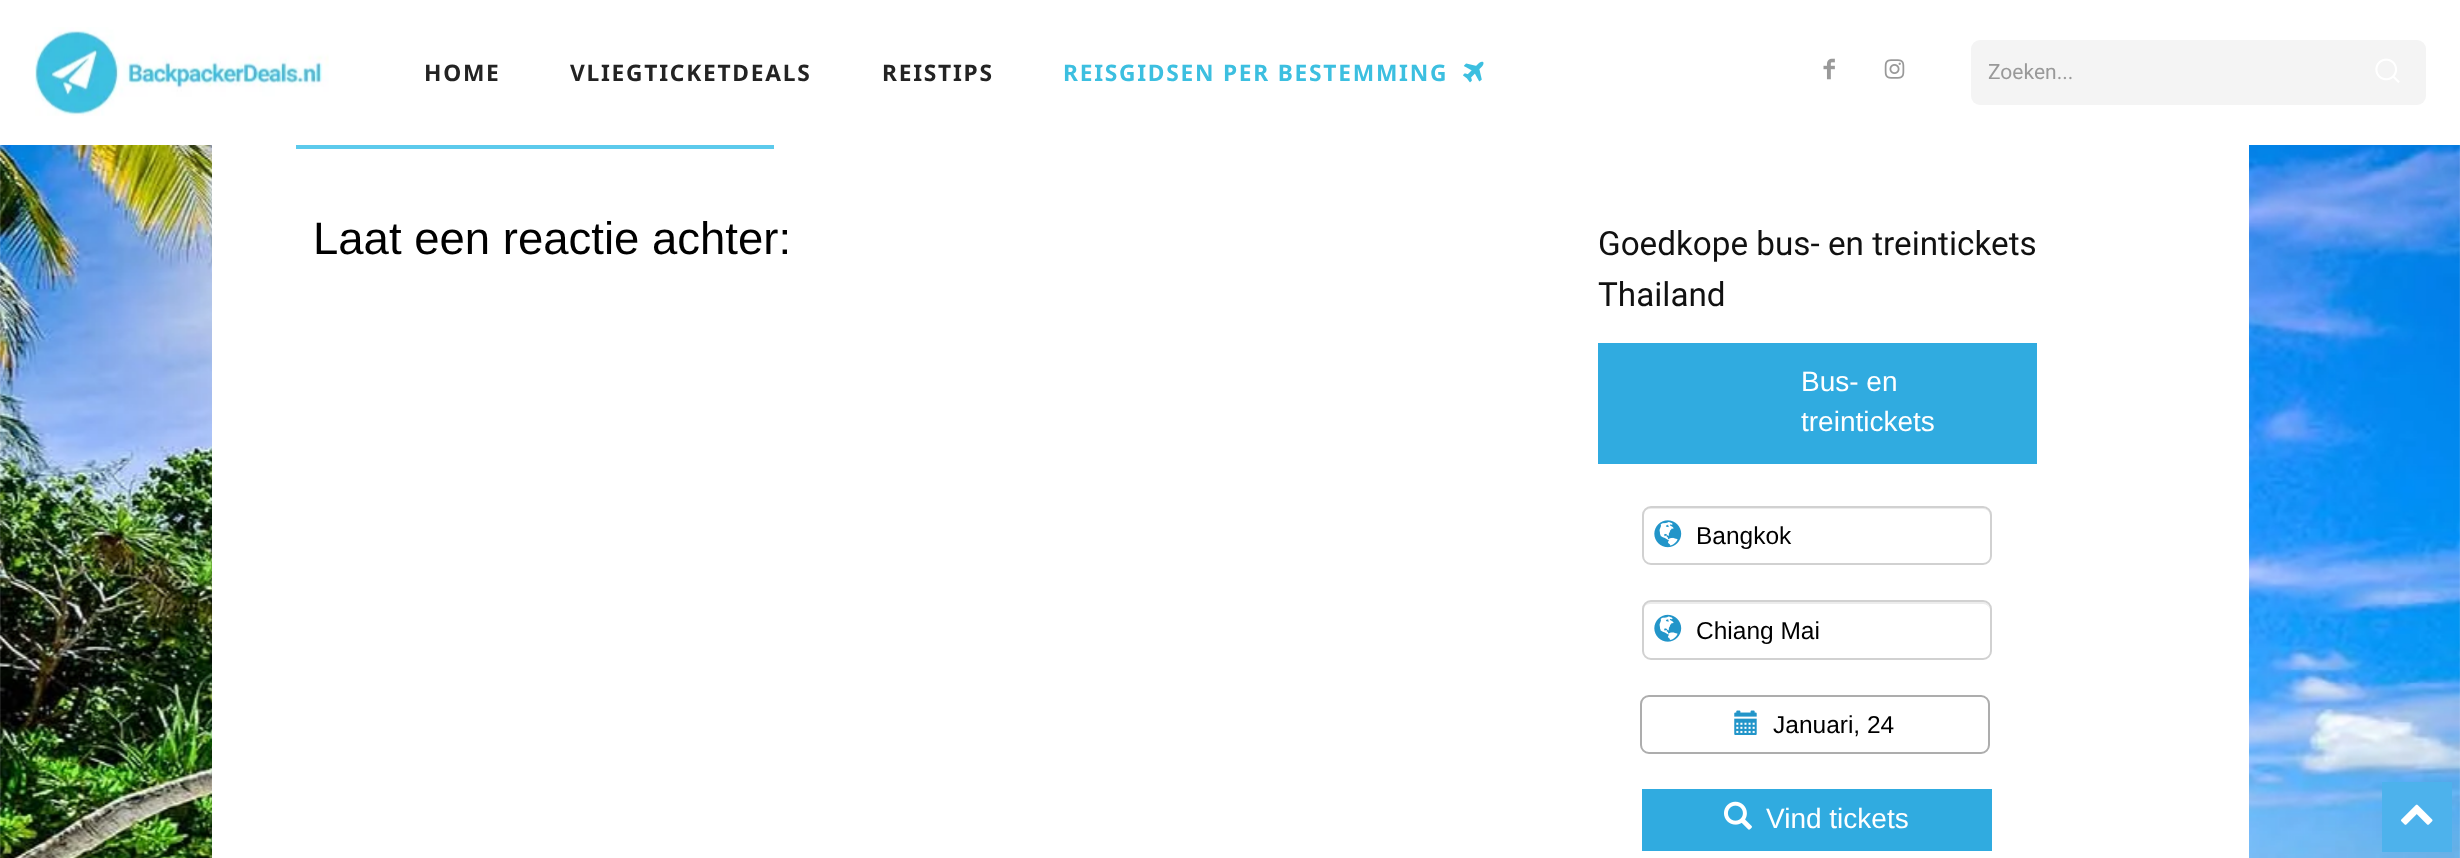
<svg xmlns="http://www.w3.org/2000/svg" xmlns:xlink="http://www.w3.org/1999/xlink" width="2460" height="858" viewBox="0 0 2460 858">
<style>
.cls-1{font:bold 22.75px Noto Sans;letter-spacing:1.75px;fill:#232323}
.cls-2{font:bold 22.75px Noto Sans;letter-spacing:1.75px;fill:#3cbfe0}
.cls-3{font:21px Roboto;fill:#999999}
.cls-4{font:45.5px Liberation Sans;fill:#000000}
.cls-5{font:33.25px Roboto;fill:#111111}
.cls-6{font:28px Liberation Sans;fill:#ffffff}
.cls-7{font:24.5px Liberation Sans;fill:#000000}
</style>
<rect width="100%" height="100%" fill="#ffffff"/>
<image xlink:href="image0.png" x="35" y="27" width="294" height="89"/>
<image xlink:href="image1.png" x="1463" y="61" width="21" height="22"/>
<image xlink:href="image2.png" x="1823" y="58" width="12" height="22"/>
<image xlink:href="image3.png" x="1884" y="59" width="21" height="20"/>
<rect fill="#f4f4f4" x="1971" y="40" width="455" height="65" rx="9"/>
<image xlink:href="image4.png" x="2375" y="58" width="25" height="25"/>
<image xlink:href="image9.png" x="0" y="145" width="2460" height="713"/>
<rect fill="#ffffff" x="212" y="145" width="2037" height="713"/>
<rect fill="#5ccaec" x="296" y="145" width="478" height="4"/>
<rect fill="#30abe0" x="1598" y="343" width="439" height="121"/>
<path fill="#ececec" d="M1650 509H1983C1987 509 1990 512 1990 516V515C1990 511 1987 508 1983 508H1650C1646 508 1643 511 1643 515V516C1643 512 1646 509 1650 509Z"/>
<rect fill="none" stroke="#d1d1d1" stroke-width="2" x="1643" y="507" width="348" height="57" rx="8"/>
<image xlink:href="image5.png" x="1654" y="520" width="28" height="28"/>
<path fill="#ececec" d="M1650 604H1983C1987 604 1990 607 1990 611C1990 607 1988 602 1983 602H1649C1644 603 1643 607 1643 611C1643 607 1646 604 1650 604Z"/>
<rect fill="none" stroke="#d1d1d1" stroke-width="2" x="1643" y="601" width="348" height="58" rx="8"/>
<image xlink:href="image6.png" x="1654" y="614" width="28" height="28"/>
<rect fill="none" stroke="#adadad" stroke-width="2" x="1641" y="696" width="348" height="57" rx="8"/>
<image xlink:href="image7.png" x="1734" y="710" width="23" height="25"/>
<rect fill="#30abe0" x="1642" y="789" width="350" height="62"/>
<image xlink:href="image8.png" x="1724" y="801" width="28" height="29"/>
<rect fill="#4db2ec" x="2382" y="782" width="70" height="70"/>
<image xlink:href="image10.png" x="2401" y="804" width="32" height="21"/>
<text class="cls-1" x="424" y="81">HOME</text>
<text class="cls-1" x="570" y="81">VLIEGTICKETDEALS</text>
<text class="cls-1" x="882" y="81">REISTIPS</text>
<text class="cls-2" x="1063" y="81">REISGIDSEN PER BESTEMMING</text>
<text class="cls-3" x="1988" y="79">Zoeken...</text>
<text class="cls-4" x="313" y="254">Laat een reactie achter:</text>
<text class="cls-5"><tspan x="1598" y="255">Goedkope bus- en treintickets</tspan><tspan x="1598" y="306">Thailand</tspan></text>
<text class="cls-6"><tspan x="1801" y="391">Bus- en</tspan><tspan x="1801" y="431">treintickets</tspan></text>
<text class="cls-7" x="1696" y="544">Bangkok</text>
<text class="cls-7" x="1696" y="639">Chiang Mai</text>
<text class="cls-7" x="1773" y="733">Januari, 24</text>
<text class="cls-6" x="1766" y="828">Vind tickets</text>
</svg>
